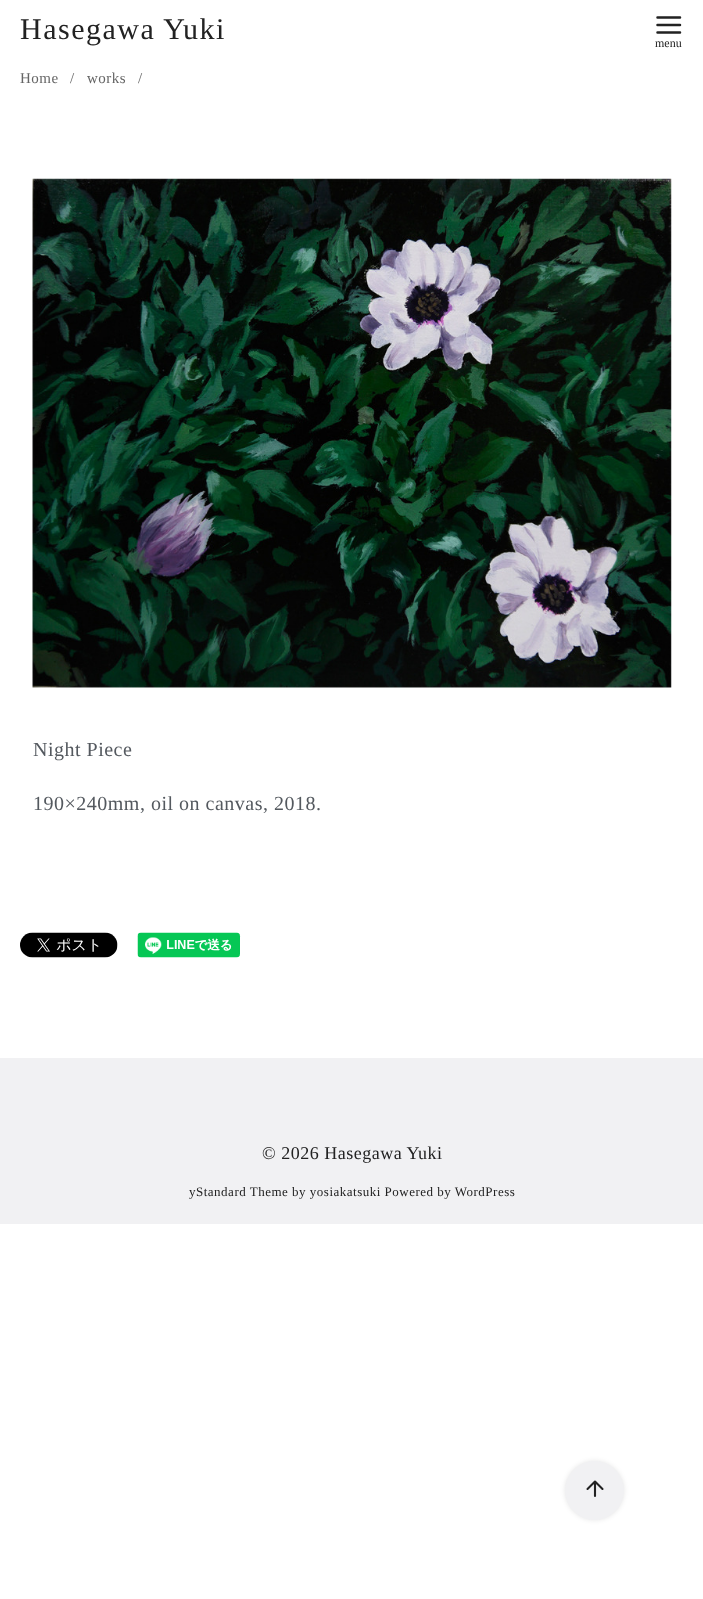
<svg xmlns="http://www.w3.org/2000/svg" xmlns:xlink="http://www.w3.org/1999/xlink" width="703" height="1599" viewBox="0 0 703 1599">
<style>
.cls-1{font:30px Liberation Serif;letter-spacing:1.5px;fill:#222222}
.cls-2{font:12px Liberation Serif;fill:#222222}
.cls-3{font:15px Liberation Serif;letter-spacing:0.5px;fill:#656565}
.cls-4{font:20px Liberation Serif;letter-spacing:0.5px;fill:#54595f}
.cls-5{font:18px Liberation Serif;letter-spacing:0.5px;fill:#222222}
.cls-6{font:13px Liberation Serif;letter-spacing:0.5px;fill:#222222}
</style>
<rect width="100%" height="100%" fill="#ffffff"/>
<path fill="none" stroke="#222222" stroke-width="2.5" stroke-linecap="round" stroke-linejoin="round" d="M657.5 25H680M657.5 17.5H680M657.5 32.5H680"/>
<image xlink:href="image0.png" x="32" y="178" width="640" height="510"/>
<image xlink:href="image1.png" x="20" y="932" width="98" height="26"/>
<image xlink:href="image2.png" x="137" y="932" width="104" height="26"/>
<rect fill="#f1f1f3" x="0" y="1058" width="703" height="166"/>
<rect fill="#000000" fill-opacity="0.1" filter="blur(2.5px)" x="565" y="1461" width="59" height="59" rx="29.5"/>
<circle fill="#f1f1f3" cx="594.5" cy="1490.5" r="29.5"/>
<path fill="none" stroke="#222222" stroke-width="2.1" stroke-linecap="round" stroke-linejoin="round" d="M595 1496V1481.5M587.5 1489L595 1481.5L602.5 1489"/>
<text class="cls-1" x="20" y="39">Hasegawa Yuki</text>
<text class="cls-2" x="655" y="47">menu</text>
<text class="cls-3" x="20" y="83">Home</text>
<text class="cls-3" x="70" y="83">/</text>
<text class="cls-3" x="87" y="83">works</text>
<text class="cls-3" x="138" y="83">/</text>
<text class="cls-4" x="33" y="756">Night Piece</text>
<text class="cls-4" x="33" y="810">190×240mm, oil on canvas, 2018.</text>
<text class="cls-5" x="262" y="1159">© 2026 Hasegawa Yuki</text>
<text class="cls-6" x="189" y="1196">yStandard Theme by yosiakatsuki Powered by WordPress</text>
</svg>
